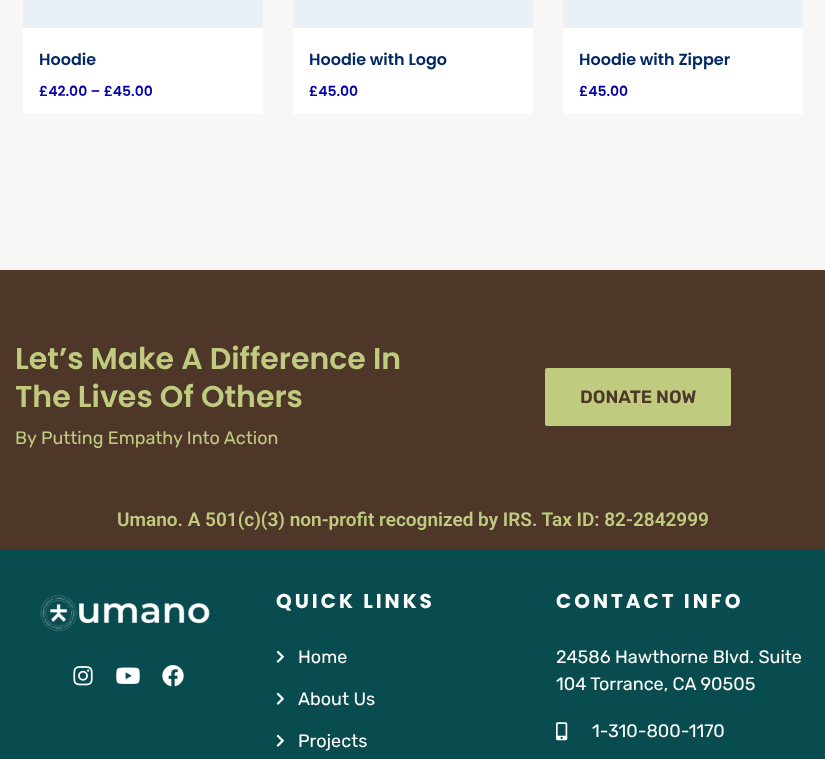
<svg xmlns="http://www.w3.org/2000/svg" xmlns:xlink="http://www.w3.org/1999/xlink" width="825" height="759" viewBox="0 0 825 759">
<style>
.cls-1{font:600 16px Poppins;fill:#002866}
.cls-2{font:600 14px Poppins;fill:#0300a8}
.cls-3{font:600 30px Poppins;fill:#bfcc80}
.cls-4{font:18px Rubik;fill:#bfcc80}
.cls-5{font:600 18px Rubik;fill:#4e3629}
.cls-6{font:600 19px Roboto;fill:#bfcc80}
.cls-7{font:bold 20px Poppins;letter-spacing:3px;fill:#ffffff}
.cls-8{font:18px Rubik;fill:#ffffff}
</style>
<rect width="100%" height="100%" fill="#f8f7f5"/>
<rect fill="#ffffff" x="23" y="-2" width="240" height="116" rx="2"/>
<rect fill="#e9f0f6" x="23" y="0" width="240" height="28"/>
<rect fill="#ffffff" x="293" y="-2" width="240" height="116" rx="2"/>
<rect fill="#e9f0f6" x="293" y="0" width="240" height="28"/>
<rect fill="#ffffff" x="563" y="-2" width="240" height="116" rx="2"/>
<rect fill="#e9f0f6" x="563" y="0" width="240" height="28"/>
<rect fill="#4e3629" x="0" y="270" width="825" height="279"/>
<rect fill="#bfcc80" x="545" y="368" width="186" height="58" rx="2"/>
<rect fill="#084c4f" x="0" y="549" width="825" height="210"/>
<image xlink:href="image0.png" x="40" y="595" width="170" height="37"/>
<image xlink:href="image1.png" x="73" y="666" width="20" height="20"/>
<image xlink:href="image2.png" x="116" y="667" width="24" height="17"/>
<image xlink:href="image3.png" x="162" y="665" width="22" height="22"/>
<image xlink:href="image4.png" x="276" y="650" width="8" height="13"/>
<image xlink:href="image4.png" x="276" y="692" width="8" height="13"/>
<image xlink:href="image4.png" x="276" y="734" width="8" height="13"/>
<image xlink:href="image5.png" x="556" y="722" width="12" height="19"/>
<text class="cls-1" x="39" y="65">Hoodie</text>
<text class="cls-2" x="39" y="96">£42.00 – £45.00</text>
<text class="cls-1" x="309" y="65">Hoodie with Logo</text>
<text class="cls-2" x="309" y="96">£45.00</text>
<text class="cls-1" x="579" y="65">Hoodie with Zipper</text>
<text class="cls-2" x="579" y="96">£45.00</text>
<text class="cls-3"><tspan x="15" y="369">Let’s Make A Difference In</tspan><tspan x="15" y="407">The Lives Of Others</tspan></text>
<text class="cls-4" x="15" y="444">By Putting Empathy Into Action</text>
<text class="cls-5" x="580" y="403">DONATE NOW</text>
<text class="cls-6" x="117" y="526">Umano. A 501(c)(3) non-profit recognized by IRS. Tax ID: 82-2842999</text>
<text class="cls-7" x="276" y="608">QUICK LINKS</text>
<text class="cls-8" x="298" y="663">Home</text>
<text class="cls-8" x="298" y="705">About Us</text>
<text class="cls-8" x="298" y="747">Projects</text>
<text class="cls-7" x="556" y="608">CONTACT INFO</text>
<text class="cls-8"><tspan x="556" y="663">24586 Hawthorne Blvd. Suite</tspan><tspan x="556" y="690">104 Torrance, CA 90505</tspan></text>
<text class="cls-8" x="592" y="737">1-310-800-1170</text>
</svg>
